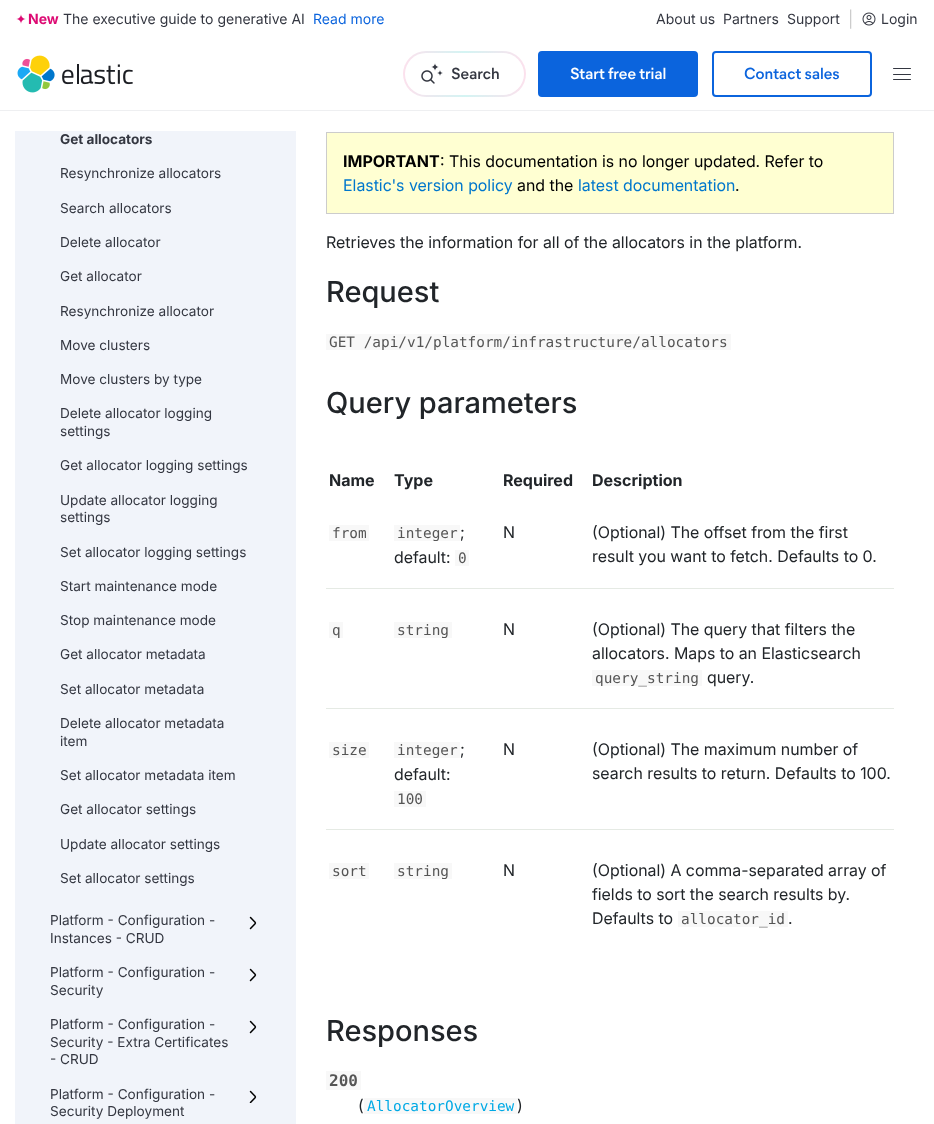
<svg xmlns="http://www.w3.org/2000/svg" xmlns:xlink="http://www.w3.org/1999/xlink" width="934" height="1124" viewBox="0 0 934 1124">
<style>
.cls-1{font:bold 14px Inter;fill:#dd0a73}
.cls-2{font:14px Inter;fill:#343741}
.cls-3{font:14px Inter;fill:#0b64dd}
.cls-4{font:16px 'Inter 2';fill:#cccccc}
.cls-5{font:600 16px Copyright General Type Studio;fill:#343741}
.cls-6{font:600 16px Copyright General Type Studio;fill:#ffffff}
.cls-7{font:600 16px Copyright General Type Studio;fill:#0b64dd}
.cls-8{font:bold 13.6px Inter;fill:#343741}
.cls-9{font:13.6px Inter;fill:#343741}
.cls-10{font:bold 16px Inter;fill:#000000}
.cls-11{font:16px 'Inter 2';fill:#000000}
.cls-12{font:16px 'Inter 2';fill:#0077cc}
.cls-13{font:16px 'Inter 2';fill:#212529}
.cls-14{font:500 29px Inter;fill:#212529}
.cls-15{font:14.4px DejaVu Sans Mono;fill:#555555}
.cls-16{font:bold 16px Inter;fill:#212529}
.cls-17{font:bold 16px DejaVu Sans Mono;fill:#555555}
.cls-18{font:14.4px DejaVu Sans Mono;fill:#00a9e5}
</style>
<defs>
<linearGradient id="g1" gradientUnits="userSpaceOnUse" x1="403" y1="74" x2="649" y2="74"><stop offset="0" stop-color="#fce1ed"/><stop offset="0.25" stop-color="#d4f4f3"/><stop offset="0.5" stop-color="#fce1ed"/><stop offset="0.75" stop-color="#d4f4f3"/><stop offset="1" stop-color="#fce1ed"/></linearGradient>
</defs>
<rect width="100%" height="100%" fill="#ffffff"/>
<rect fill="#eeeff1" x="0" y="110" width="934" height="1"/>
<image xlink:href="image0.png" x="16" y="14" width="10" height="10"/>
<image xlink:href="image1.png" x="862" y="12" width="14" height="14"/>
<image xlink:href="image2.png" x="17" y="55" width="116" height="38"/>
<rect fill="url(#g1)" x="403" y="51" width="123" height="46" rx="23"/>
<rect fill="#ffffff" x="405" y="53" width="119" height="42" rx="21"/>
<image xlink:href="image3.png" x="421" y="63" width="22" height="21"/>
<rect fill="#0b64dd" stroke="#0b64dd" stroke-width="2" x="539" y="52" width="158" height="44" rx="3"/>
<rect fill="none" stroke="#0b64dd" stroke-width="2" x="713" y="52" width="158" height="44" rx="3"/>
<rect fill="#343741" x="893" y="68" width="18" height="1" rx="0.5"/>
<rect fill="#343741" x="893" y="74" width="18" height="1" rx="0.5"/>
<rect fill="#343741" x="893" y="79" width="18" height="1" rx="0.5"/>
<rect fill="#f1f4fa" x="15" y="131" width="281" height="993"/>
<image xlink:href="image4.png" x="249" y="916" width="8" height="14"/>
<image xlink:href="image4.png" x="249" y="968" width="8" height="14"/>
<image xlink:href="image4.png" x="249" y="1020" width="8" height="14"/>
<image xlink:href="image5.png" x="249" y="1090" width="8" height="13"/>
<rect fill="#ffffd2" stroke="#cccccc" x="326.5" y="132.5" width="567" height="81"/>
<rect fill="#f8f8f8" x="326" y="334" width="405" height="16"/>
<rect fill="#f8f8f8" x="329" y="525" width="40" height="16"/>
<rect fill="#f8f8f8" x="394" y="525" width="66" height="16"/>
<rect fill="#f8f8f8" x="455" y="550" width="14" height="16"/>
<rect fill="#e5eae4" x="326" y="588" width="568" height="1"/>
<rect fill="#f8f8f8" x="329" y="622" width="14" height="16"/>
<rect fill="#f8f8f8" x="394" y="622" width="58" height="16"/>
<rect fill="#e5eae4" x="326" y="708" width="568" height="1"/>
<rect fill="#f8f8f8" x="592" y="670" width="110" height="16"/>
<rect fill="#f8f8f8" x="329" y="742" width="40" height="16"/>
<rect fill="#f8f8f8" x="394" y="742" width="66" height="16"/>
<rect fill="#f8f8f8" x="394" y="791" width="32" height="16"/>
<rect fill="#e5eae4" x="326" y="829" width="568" height="1"/>
<rect fill="#f8f8f8" x="329" y="863" width="40" height="16"/>
<rect fill="#f8f8f8" x="394" y="863" width="58" height="16"/>
<rect fill="#f8f8f8" x="678" y="911" width="110" height="16"/>
<rect fill="#f8f8f8" x="326" y="1071" width="35" height="19"/>
<rect fill="#f8f8f8" x="364" y="1098" width="153" height="16"/>
<text class="cls-1" x="28" y="24">New</text>
<text class="cls-2" x="63" y="24">The executive guide to generative AI</text>
<text class="cls-3" x="313" y="24">Read more</text>
<text class="cls-2" x="656" y="24">About us</text>
<text class="cls-2" x="723" y="24">Partners</text>
<text class="cls-2" x="787" y="24">Support</text>
<text class="cls-4" x="848" y="25">|</text>
<text class="cls-2" x="881" y="24">Login</text>
<text class="cls-5" x="451" y="79">Search</text>
<text class="cls-6" x="570" y="79">Start free trial</text>
<text class="cls-7" x="744" y="79">Contact sales</text>
<text class="cls-8" x="60" y="144">Get allocators</text>
<text class="cls-9" x="60" y="178">Resynchronize allocators</text>
<text class="cls-9" x="60" y="213">Search allocators</text>
<text class="cls-9" x="60" y="247">Delete allocator</text>
<text class="cls-9" x="60" y="281">Get allocator</text>
<text class="cls-9" x="60" y="316">Resynchronize allocator</text>
<text class="cls-9" x="60" y="350">Move clusters</text>
<text class="cls-9" x="60" y="384">Move clusters by type</text>
<text class="cls-9"><tspan x="60" y="418">Delete allocator logging</tspan><tspan x="60" y="436">settings</tspan></text>
<text class="cls-9" x="60" y="470">Get allocator logging settings</text>
<text class="cls-9"><tspan x="60" y="505">Update allocator logging</tspan><tspan x="60" y="522">settings</tspan></text>
<text class="cls-9" x="60" y="557">Set allocator logging settings</text>
<text class="cls-9" x="60" y="591">Start maintenance mode</text>
<text class="cls-9" x="60" y="625">Stop maintenance mode</text>
<text class="cls-9" x="60" y="659">Get allocator metadata</text>
<text class="cls-9" x="60" y="694">Set allocator metadata</text>
<text class="cls-9"><tspan x="60" y="728">Delete allocator metadata</tspan><tspan x="60" y="746">item</tspan></text>
<text class="cls-9" x="60" y="780">Set allocator metadata item</text>
<text class="cls-9" x="60" y="814">Get allocator settings</text>
<text class="cls-9" x="60" y="849">Update allocator settings</text>
<text class="cls-9" x="60" y="883">Set allocator settings</text>
<text class="cls-9"><tspan x="50" y="925">Platform - Configuration -</tspan><tspan x="50" y="943">Instances - CRUD</tspan></text>
<text class="cls-9"><tspan x="50" y="977">Platform - Configuration -</tspan><tspan x="50" y="995">Security</tspan></text>
<text class="cls-9"><tspan x="50" y="1029">Platform - Configuration -</tspan><tspan x="50" y="1047">Security - Extra Certificates</tspan><tspan x="50" y="1064">- CRUD</tspan></text>
<text class="cls-9"><tspan x="50" y="1099">Platform - Configuration -</tspan><tspan x="50" y="1116">Security Deployment</tspan></text>
<text class="cls-10" x="343" y="167">IMPORTANT</text>
<text class="cls-11" x="440" y="167">: This documentation is no longer updated. Refer to</text>
<text class="cls-12" x="343" y="191">Elastic's version policy</text>
<text class="cls-11" x="517" y="191">and the</text>
<text class="cls-12" x="578" y="191">latest documentation</text>
<text class="cls-11" x="735" y="191">.</text>
<text class="cls-13" x="326" y="248">Retrieves the information for all of the allocators in the platform.</text>
<text class="cls-14" x="326" y="302">Request</text>
<text class="cls-15" x="329" y="347">GET /api/v1/platform/infrastructure/allocators</text>
<text class="cls-14" x="326" y="413">Query parameters</text>
<text class="cls-16" x="329" y="486">Name</text>
<text class="cls-16" x="394" y="486">Type</text>
<text class="cls-16" x="503" y="486">Required</text>
<text class="cls-16" x="592" y="486">Description</text>
<text class="cls-15" x="332" y="538">from</text>
<text class="cls-15" x="397" y="538">integer</text>
<text class="cls-13" x="460" y="538">;</text>
<text class="cls-13" x="394" y="563">default:</text>
<text class="cls-15" x="458" y="563">0</text>
<text class="cls-13" x="503" y="538">N</text>
<text class="cls-13"><tspan x="592" y="538">(Optional) The offset from the first</tspan><tspan x="592" y="562">result you want to fetch. Defaults to 0.</tspan></text>
<text class="cls-15" x="332" y="635">q</text>
<text class="cls-15" x="397" y="635">string</text>
<text class="cls-13" x="503" y="635">N</text>
<text class="cls-13"><tspan x="592" y="635">(Optional) The query that filters the</tspan><tspan x="592" y="659">allocators. Maps to an Elasticsearch</tspan></text>
<text class="cls-15" x="595" y="683">query_string</text>
<text class="cls-13" x="707" y="683">query.</text>
<text class="cls-15" x="332" y="755">size</text>
<text class="cls-15" x="397" y="755">integer</text>
<text class="cls-13" x="460" y="755">;</text>
<text class="cls-13" x="394" y="780">default:</text>
<text class="cls-15" x="397" y="804">100</text>
<text class="cls-13" x="503" y="755">N</text>
<text class="cls-13"><tspan x="592" y="755">(Optional) The maximum number of</tspan><tspan x="592" y="779">search results to return. Defaults to 100.</tspan></text>
<text class="cls-15" x="332" y="876">sort</text>
<text class="cls-15" x="397" y="876">string</text>
<text class="cls-13" x="503" y="876">N</text>
<text class="cls-13"><tspan x="592" y="876">(Optional) A comma-separated array of</tspan><tspan x="592" y="900">fields to sort the search results by.</tspan><tspan x="592" y="924">Defaults to</tspan></text>
<text class="cls-15" x="681" y="924">allocator_id</text>
<text class="cls-13" x="788" y="924">.</text>
<text class="cls-14" x="326" y="1041">Responses</text>
<text class="cls-17" x="329" y="1086">200</text>
<text class="cls-13" x="358" y="1111">(</text>
<text class="cls-18" x="367" y="1111">AllocatorOverview</text>
<text class="cls-13" x="517" y="1111">)</text>
</svg>
